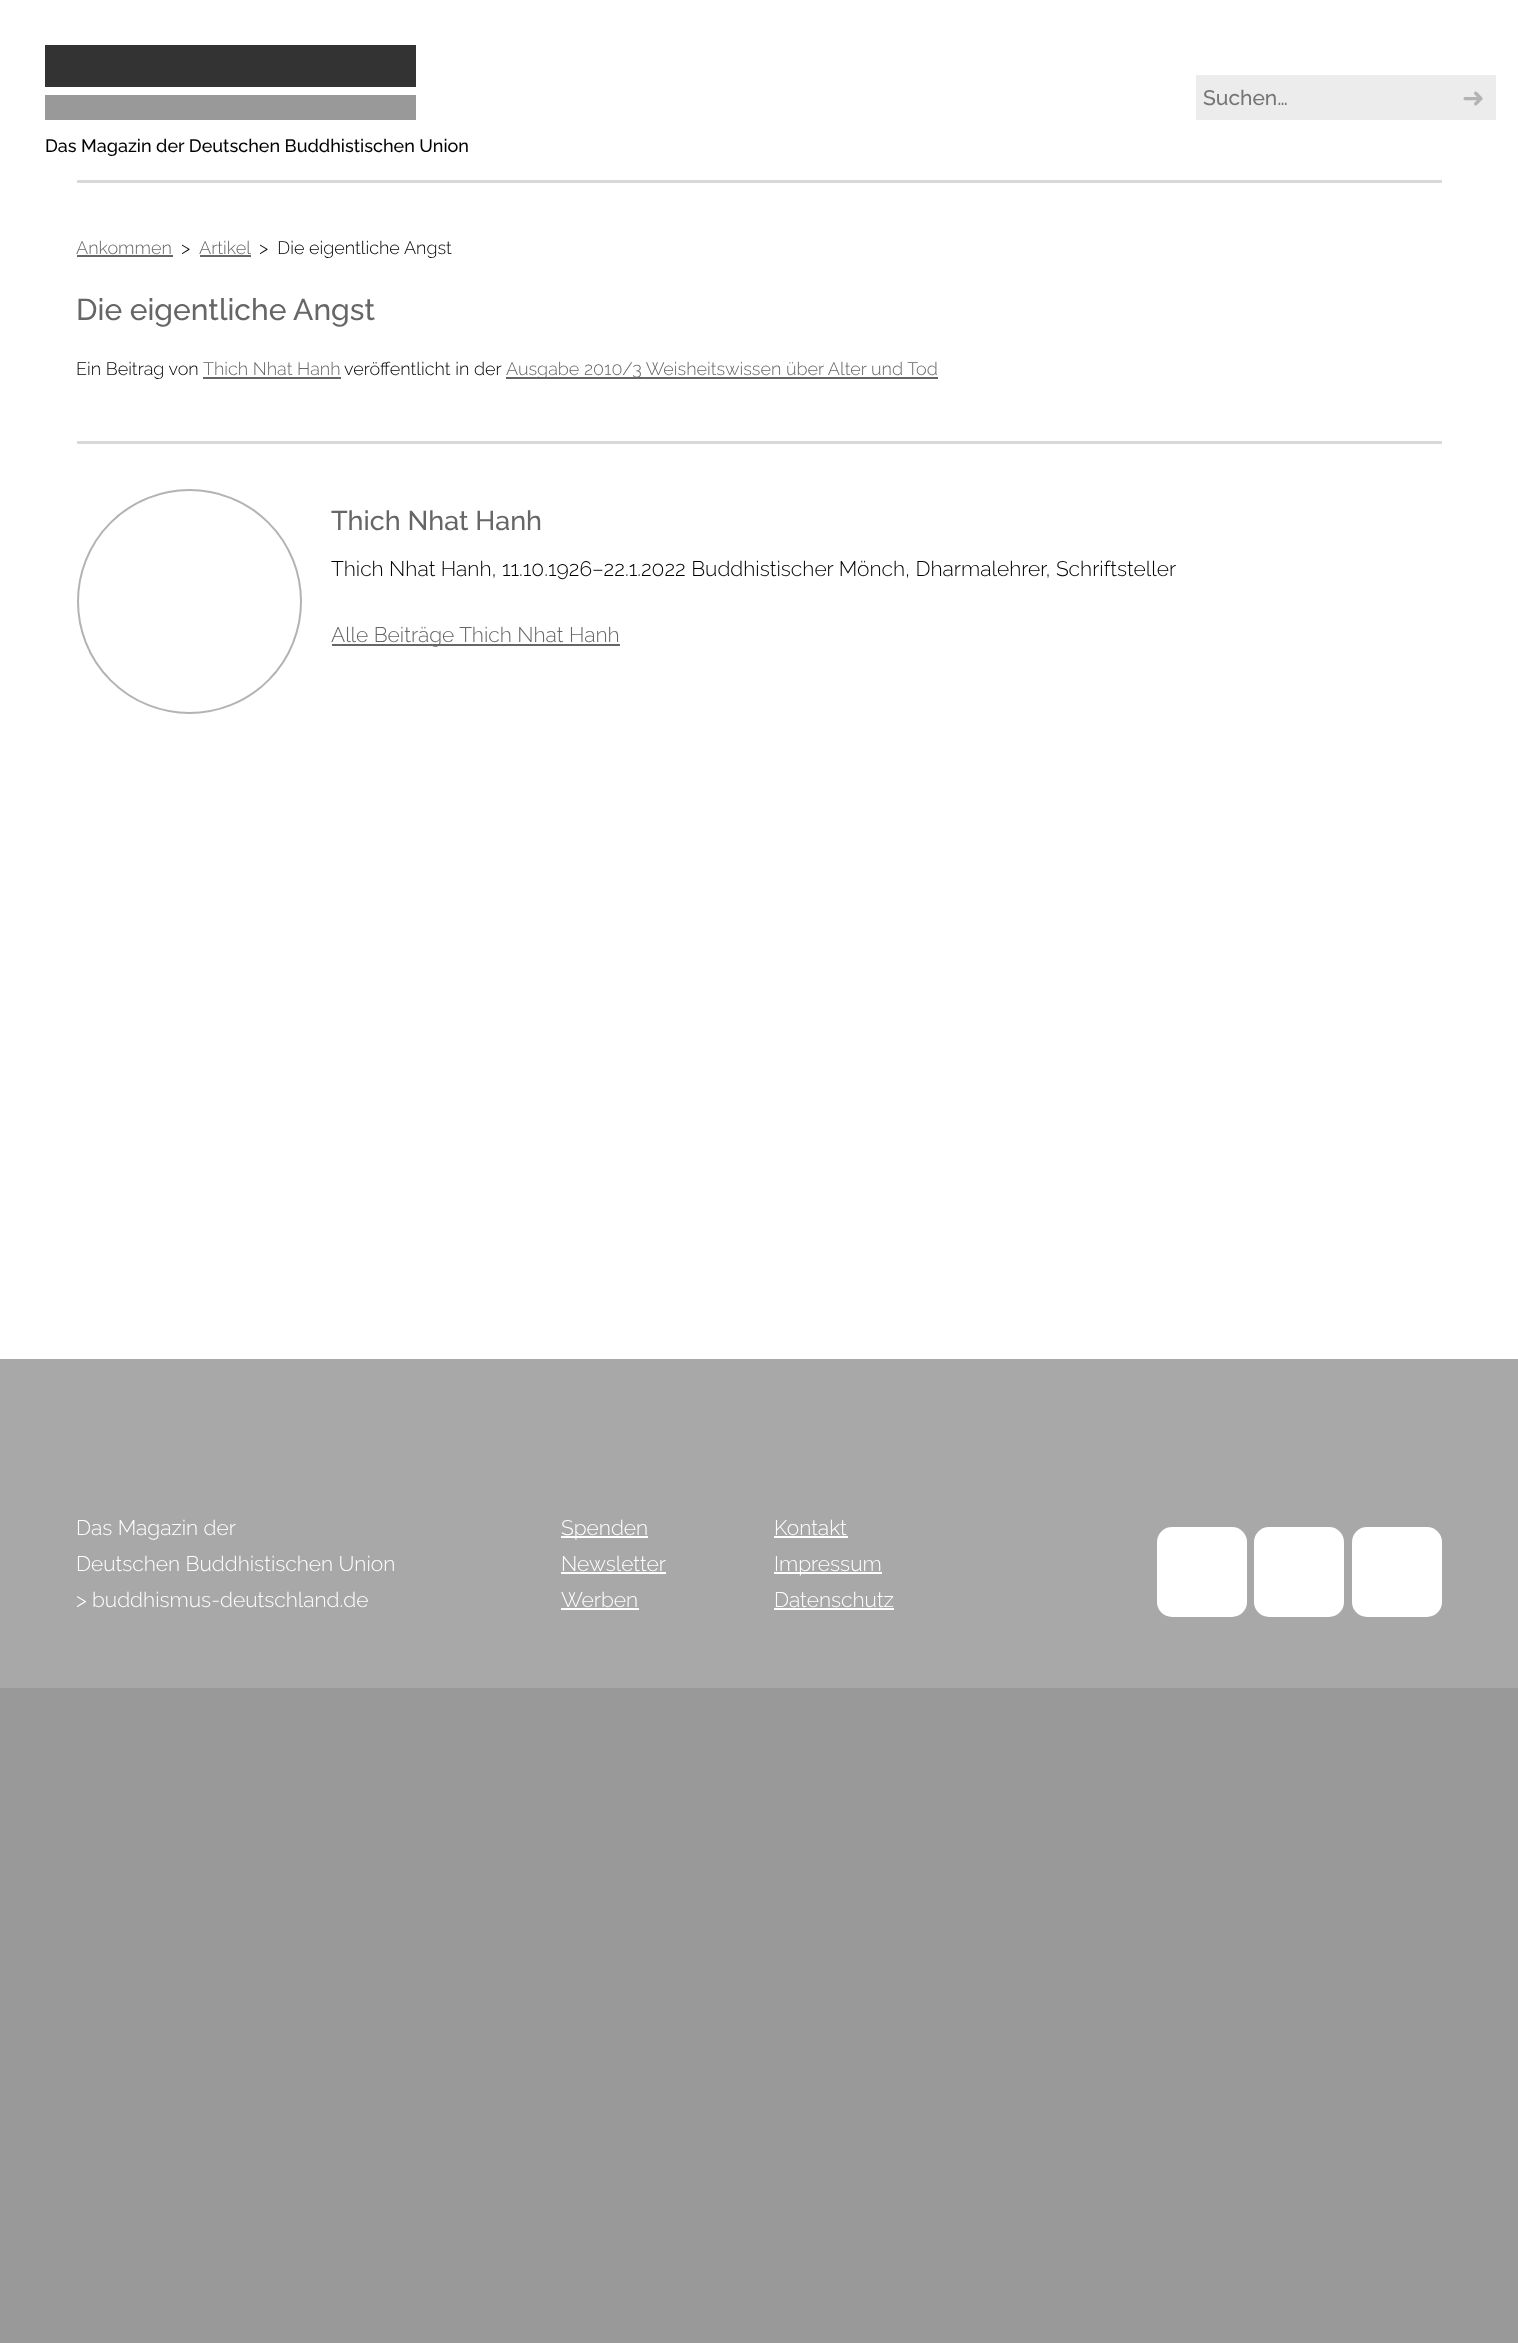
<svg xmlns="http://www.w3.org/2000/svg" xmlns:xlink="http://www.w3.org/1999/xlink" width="1518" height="2343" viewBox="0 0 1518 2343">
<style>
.cls-1{font:500 21px Raleway;fill:#757575}
.cls-2{font:27px DejaVu Sans;fill:#b2b3b3}
.cls-3{font:500 18px Raleway;fill:#000000}
.cls-4{font:300 18px Raleway;fill:#666666}
.cls-5{font:300 18px Raleway;fill:#000000}
.cls-6{font:500 30px Raleway;fill:#666666}
.cls-7{font:500 27px Raleway;fill:#666666}
.cls-8{font:300 21px Raleway;fill:#000000}
.cls-9{font:300 21px Raleway;fill:#666666}
.cls-10{font:300 21px Raleway;fill:#ffffff}
</style>
<rect width="100%" height="100%" fill="#999999"/>
<rect fill="#ffffff" x="0" y="0" width="1518" height="1359"/>
<rect fill="#ececec" x="1196" y="75" width="300" height="45"/>
<rect fill="#333333" x="45" y="45" width="371" height="42"/>
<rect fill="#999999" x="45" y="95" width="371" height="25"/>
<rect fill="#d8d9d9" x="77" y="180" width="1365" height="3"/>
<rect fill="#666666" x="77" y="255" width="96" height="2"/>
<rect fill="#666666" x="200" y="255" width="51" height="2"/>
<rect fill="#666666" x="203" y="377" width="138" height="2"/>
<rect fill="#666666" x="506" y="377" width="432" height="2"/>
<rect fill="#d8d9d9" x="77" y="441" width="1365" height="3"/>
<circle fill="none" stroke="#b2b3b3" stroke-width="2" cx="189.5" cy="601.5" r="111.5"/>
<rect fill="#666666" x="332" y="644" width="288" height="2"/>
<rect fill="#a8a8a8" x="0" y="1359" width="1518" height="329"/>
<rect fill="#ffffff" x="561" y="1536" width="87" height="2"/>
<rect fill="#ffffff" x="561" y="1572" width="105" height="2"/>
<rect fill="#ffffff" x="561" y="1608" width="78" height="2"/>
<rect fill="#ffffff" x="774" y="1536" width="74" height="2"/>
<rect fill="#ffffff" x="774" y="1572" width="108" height="2"/>
<rect fill="#ffffff" x="774" y="1608" width="120" height="2"/>
<rect fill="#ffffff" x="1157" y="1527" width="90" height="90" rx="15"/>
<rect fill="#ffffff" x="1254" y="1527" width="90" height="90" rx="15"/>
<rect fill="#ffffff" x="1352" y="1527" width="90" height="90" rx="15"/>
<text class="cls-1" x="1203" y="105">Suchen…</text>
<text class="cls-2" x="1462" y="107">➜</text>
<text class="cls-3" x="45" y="152">Das Magazin der Deutschen Buddhistischen Union</text>
<text class="cls-4" x="76" y="254">Ankommen</text>
<text class="cls-5" x="181" y="254">&gt;</text>
<text class="cls-4" x="199" y="254">Artikel</text>
<text class="cls-5" xml:space="preserve" x="259" y="254">&gt;  Die eigentliche Angst</text>
<text class="cls-6" x="76" y="320">Die eigentliche Angst</text>
<text class="cls-5" x="76" y="375">Ein Beitrag von</text>
<text class="cls-4" x="203" y="375">Thich Nhat Hanh</text>
<text class="cls-5" x="344" y="375">veröffentlicht in der</text>
<text class="cls-4" x="506" y="375">Ausgabe 2010/3 Weisheitswissen über Alter und Tod</text>
<text class="cls-7" x="331" y="530">Thich Nhat Hanh</text>
<text class="cls-8" x="331" y="576">Thich Nhat Hanh, 11.10.1926–22.1.2022 Buddhistischer Mönch, Dharmalehrer, Schriftsteller</text>
<text class="cls-9" x="331" y="642">Alle Beiträge Thich Nhat Hanh</text>
<text class="cls-10"><tspan x="76" y="1535">Das Magazin der</tspan><tspan x="76" y="1571">Deutschen Buddhistischen Union</tspan><tspan x="76" y="1607">&gt; buddhismus-deutschland.de</tspan></text>
<text class="cls-10"><tspan x="561" y="1535">Spenden</tspan><tspan x="561" y="1571">Newsletter</tspan><tspan x="561" y="1607">Werben</tspan></text>
<text class="cls-10"><tspan x="774" y="1535">Kontakt</tspan><tspan x="774" y="1571">Impressum</tspan><tspan x="774" y="1607">Datenschutz</tspan></text>
</svg>
